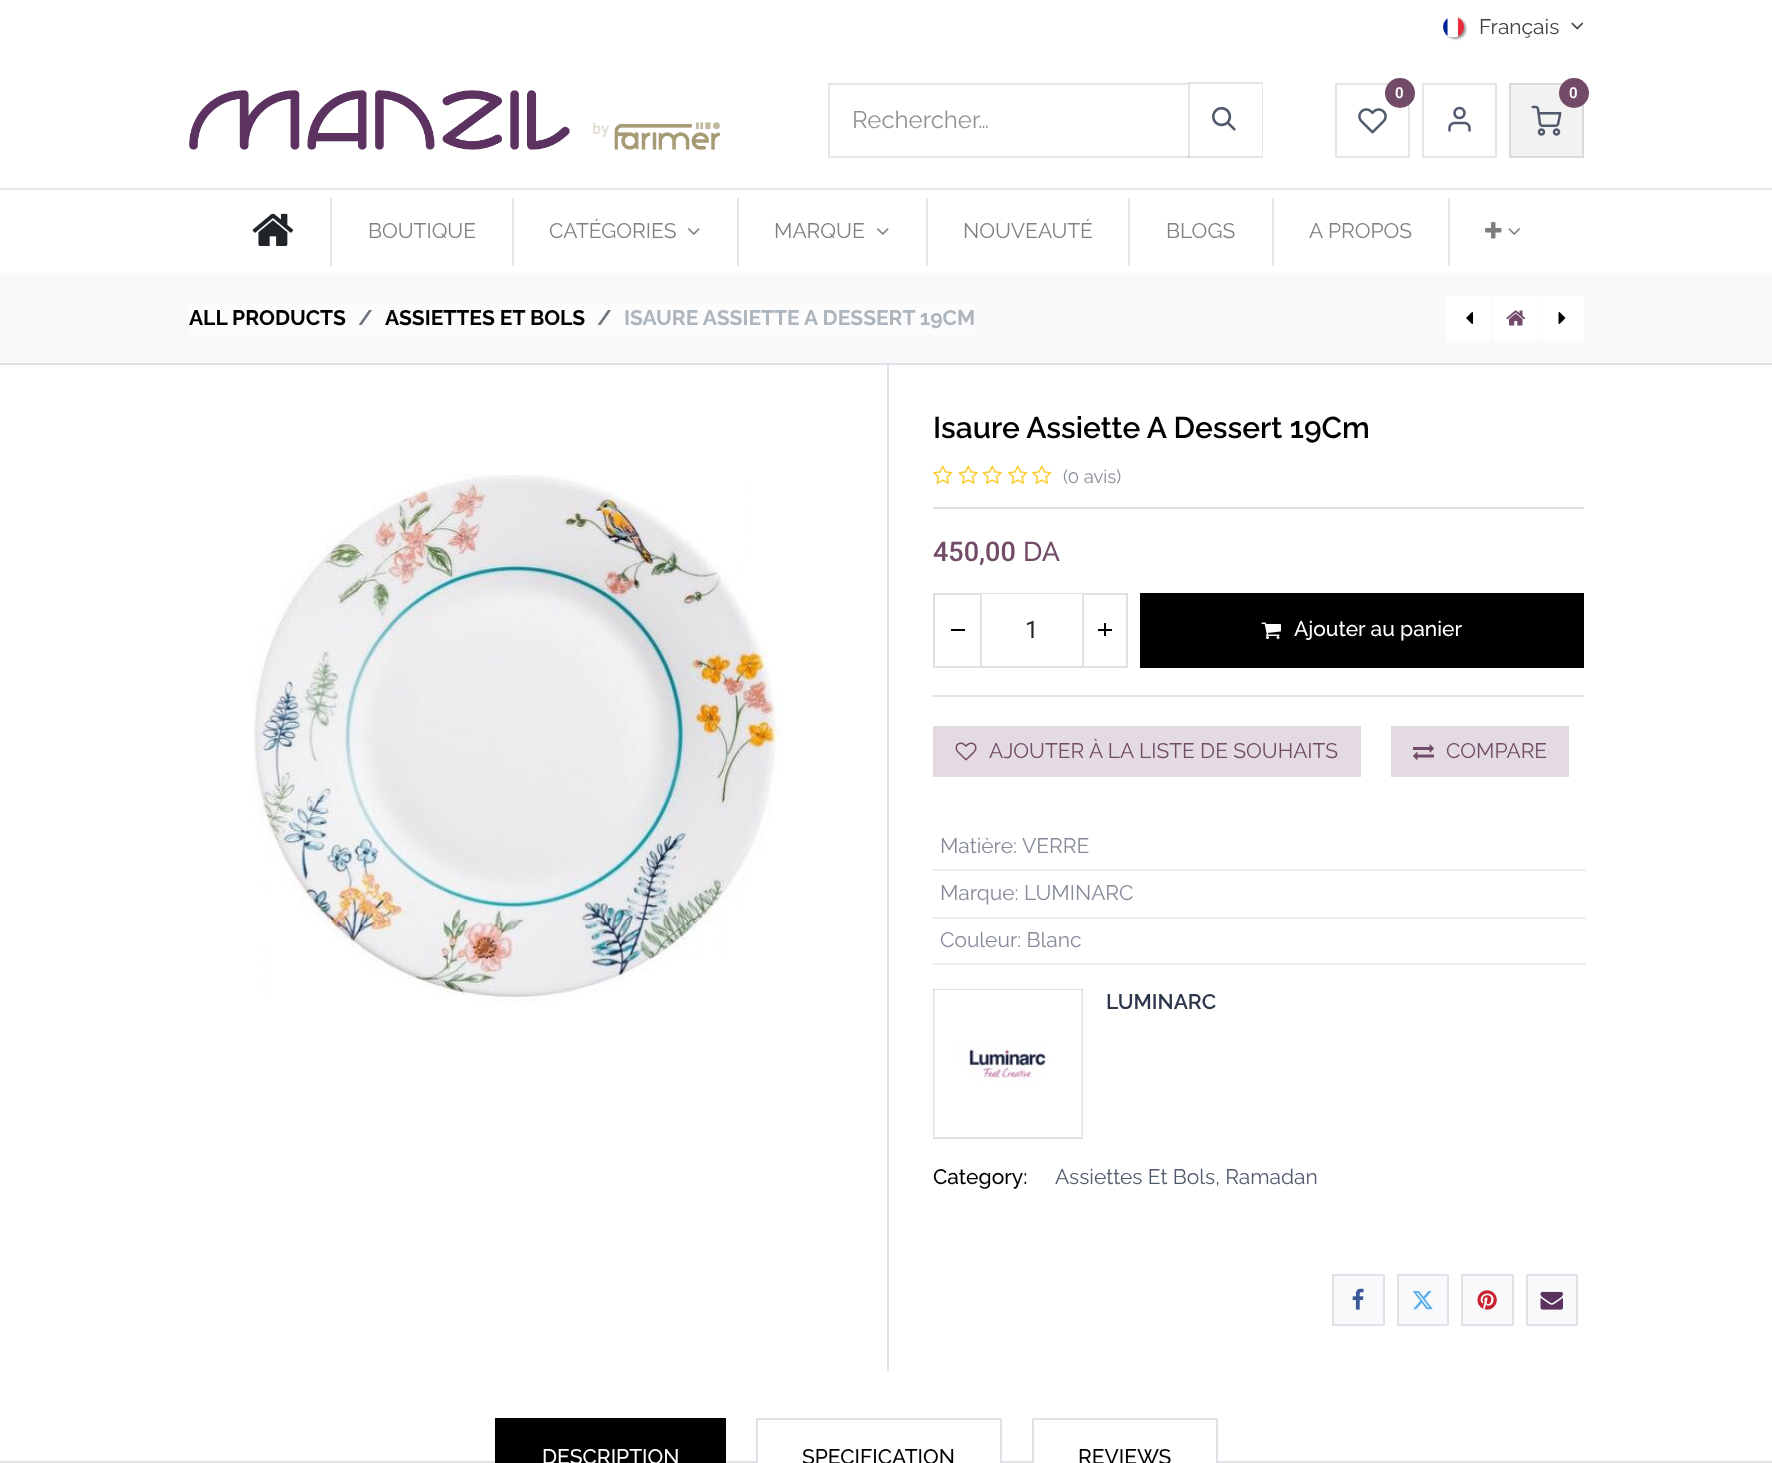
<svg xmlns="http://www.w3.org/2000/svg" xmlns:xlink="http://www.w3.org/1999/xlink" width="1772" height="1463" viewBox="0 0 1772 1463">
<style>
.cls-1{font:21px Raleway;fill:#404040}
.cls-2{font:24px Raleway;fill:#909294}
.cls-3{font:600 15px Roboto;fill:#ffffff}
.cls-4{font:21px Raleway;fill:#808080}
.cls-5{font:bold 21px Raleway;fill:#000000}
.cls-6{font:bold 21px Raleway;fill:#6c757d}
.cls-7{font:bold 21px Raleway;fill:#adb5bd}
.cls-8{font:600 30px Raleway;fill:#000000}
.cls-9{font:18.5px Raleway;fill:#858b98}
.cls-10{font:500 27px Roboto;fill:#714b67}
.cls-11{font:500 27px Raleway;fill:#714b67}
.cls-12{font:24px Roboto;fill:#212529}
.cls-13{font:500 21px Raleway;fill:#ffffff}
.cls-14{font:21px Raleway;fill:#714b67}
.cls-15{font:21px Raleway;fill:#858b98}
.cls-16{font:600 21px Raleway;fill:#2d374b}
.cls-17{font:500 21px Raleway;fill:#000000}
.cls-18{font:21px Raleway;fill:#51596c}
</style>
<rect width="100%" height="100%" fill="#ffffff"/>
<rect fill="#000000" fill-opacity="0.43" filter="blur(1px)" x="1445" y="18" width="21" height="21" rx="10.5"/>
<image xlink:href="image0.png" x="1443" y="17" width="21" height="21"/>
<image xlink:href="image1.png" x="1571" y="22" width="12" height="8"/>
<image xlink:href="image2.png" x="189" y="90" width="531" height="60"/>
<rect fill="none" stroke="#e6e6e6" stroke-width="2" x="829" y="84" width="360" height="73"/>
<path fill="#000000" fill-opacity="0.1" d="M1188 82H1263L1262 84H1188Z"/>
<path fill="#000000" fill-opacity="0.1" d="M1263 82V158L1262 156V84Z"/>
<path fill="#000000" fill-opacity="0.1" d="M1263 158H1188V156H1262Z"/>
<image xlink:href="image3.png" x="1212" y="106" width="24" height="25"/>
<rect fill="none" stroke="#e6e6e6" stroke-width="2" x="1336" y="84" width="73" height="73"/>
<circle fill="#714b67" cx="1400" cy="93" r="15"/>
<image xlink:href="image4.png" x="1358" y="108" width="29" height="26"/>
<rect fill="none" stroke="#e6e6e6" stroke-width="2" x="1423" y="84" width="73" height="73"/>
<image xlink:href="image5.png" x="1448" y="106" width="23" height="26"/>
<rect fill="#f2f2f2" stroke="#dadada" stroke-width="2" x="1510" y="84" width="73" height="73"/>
<image xlink:href="image6.png" x="1531" y="105" width="31" height="31"/>
<circle fill="#714b67" cx="1574" cy="93" r="15"/>
<rect fill="#e6e6e6" x="0" y="188" width="1772" height="2"/>
<image xlink:href="image7.png" x="252" y="213" width="42" height="33"/>
<rect fill="#e6e6e6" x="330" y="198" width="2" height="68"/>
<rect fill="#e6e6e6" x="512" y="198" width="2" height="68"/>
<image xlink:href="image8.png" x="688" y="228" width="12" height="7"/>
<rect fill="#e6e6e6" x="737" y="198" width="2" height="68"/>
<image xlink:href="image8.png" x="877" y="228" width="12" height="7"/>
<rect fill="#e6e6e6" x="926" y="198" width="2" height="68"/>
<rect fill="#e6e6e6" x="1128" y="198" width="2" height="68"/>
<rect fill="#e6e6e6" x="1272" y="198" width="2" height="68"/>
<rect fill="#e6e6e6" x="1448" y="198" width="2" height="68"/>
<image xlink:href="image9.png" x="1485" y="222" width="17" height="17"/>
<image xlink:href="image10.png" x="1508" y="228" width="12" height="7"/>
<rect fill="#f8f9fa" x="0" y="273" width="1772" height="90"/>
<rect fill="#dee2e6" x="0" y="363" width="1772" height="2"/>
<rect fill="#fcfcfd" x="189" y="303" width="786" height="32"/>
<rect fill="#ffffff" x="1446" y="296" width="45" height="45"/>
<image xlink:href="image11.png" x="1466" y="312" width="7" height="12"/>
<rect fill="#ffffff" x="1493" y="296" width="45" height="45"/>
<image xlink:href="image12.png" x="1506" y="310" width="20" height="16"/>
<rect fill="#ffffff" x="1539" y="296" width="45" height="45"/>
<image xlink:href="image13.png" x="1558" y="312" width="8" height="12"/>
<image xlink:href="image14.png" x="253" y="474" width="530" height="530"/>
<rect fill="#dee2e6" x="887" y="365" width="2" height="1006"/>
<rect fill="#dee2e6" x="933" y="507" width="651" height="2"/>
<image xlink:href="image15.png" x="933" y="465" width="20" height="19"/>
<image xlink:href="image16.png" x="958" y="465" width="20" height="19"/>
<image xlink:href="image16.png" x="982" y="465" width="20" height="19"/>
<image xlink:href="image15.png" x="1008" y="465" width="20" height="19"/>
<image xlink:href="image15.png" x="1032" y="465" width="20" height="19"/>
<rect fill="none" stroke="#dee2e6" stroke-width="2" x="934" y="594" width="193" height="73"/>
<rect fill="#000000" x="951" y="629" width="14" height="2"/>
<rect fill="#ffffff" x="982" y="594" width="100" height="1"/>
<rect fill="#dee2e6" x="1082" y="594" width="2" height="72"/>
<rect fill="#dee2e6" x="980" y="594" width="2" height="72"/>
<rect fill="#000000" x="1098" y="629" width="14" height="2"/>
<rect fill="#000000" x="1104" y="623" width="2" height="13"/>
<rect fill="#000000" x="1140" y="593" width="444" height="75"/>
<image xlink:href="image17.png" x="1261" y="622" width="20" height="17"/>
<rect fill="#dee2e6" x="933" y="695" width="651" height="2"/>
<rect fill="#e3dbe1" x="933" y="726" width="428" height="51"/>
<image xlink:href="image18.png" x="955" y="742" width="22" height="19"/>
<rect fill="#e3dbe1" x="1391" y="726" width="178" height="51"/>
<image xlink:href="image19.png" x="1413" y="744" width="21" height="17"/>
<rect fill="#edeef0" x="933" y="869" width="653" height="2"/>
<rect fill="#edeef0" x="933" y="917" width="653" height="2"/>
<rect fill="#edeef0" x="933" y="963" width="653" height="2"/>
<rect fill="none" stroke="#dee2e6" stroke-width="2" x="934" y="990" width="148" height="148"/>
<image xlink:href="image20.png" x="934" y="990" width="148" height="147"/>
<rect fill="#f8f9fa" stroke="#dee2e6" stroke-width="2" x="1333" y="1275" width="51" height="50"/>
<image xlink:href="image21.png" x="1352" y="1288" width="12" height="22"/>
<rect fill="#f8f9fa" stroke="#dee2e6" stroke-width="2" x="1398" y="1275" width="50" height="50"/>
<image xlink:href="image22.png" x="1412" y="1291" width="21" height="19"/>
<rect fill="#f8f9fa" stroke="#dee2e6" stroke-width="2" x="1462" y="1275" width="51" height="50"/>
<image xlink:href="image23.png" x="1477" y="1290" width="20" height="20"/>
<rect fill="#f8f9fa" stroke="#dee2e6" stroke-width="2" x="1527" y="1275" width="50" height="50"/>
<image xlink:href="image24.png" x="1540" y="1291" width="23" height="19"/>
<rect fill="#dee2e6" x="0" y="1461" width="1772" height="2"/>
<rect fill="#000000" x="495" y="1418" width="231" height="45"/>
<rect fill="#ffffff" x="758" y="1461" width="242" height="2"/>
<rect fill="none" stroke="#dee2e6" stroke-width="2" x="757" y="1419" width="244" height="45"/>
<rect fill="#ffffff" x="1034" y="1461" width="182" height="2"/>
<rect fill="none" stroke="#dee2e6" stroke-width="2" x="1033" y="1419" width="184" height="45"/>
<text class="cls-1" x="1479" y="34">Français</text>
<text class="cls-2" x="852" y="128">Rechercher…</text>
<text class="cls-3" x="1395" y="98">0</text>
<text class="cls-3" x="1569" y="98">0</text>
<text class="cls-4" x="368" y="238">BOUTIQUE</text>
<text class="cls-4" x="549" y="238">CATÉGORIES</text>
<text class="cls-4" x="774" y="238">MARQUE</text>
<text class="cls-4" x="963" y="238">NOUVEAUTÉ</text>
<text class="cls-4" x="1166" y="238">BLOGS</text>
<text class="cls-4" x="1309" y="238">A PROPOS</text>
<text class="cls-5" x="189" y="325">ALL PRODUCTS</text>
<text class="cls-6" x="358" y="325">/</text>
<text class="cls-5" x="385" y="325">ASSIETTES ET BOLS</text>
<text class="cls-6" x="597" y="325">/</text>
<text class="cls-7" x="624" y="325">ISAURE ASSIETTE A DESSERT 19CM</text>
<text class="cls-8" x="933" y="438">Isaure Assiette A Dessert 19Cm</text>
<text class="cls-9" x="1063" y="483">(0 avis)</text>
<text class="cls-10" x="933" y="561">450,00</text>
<text class="cls-11" x="1023" y="561">DA</text>
<text class="cls-12" x="1025" y="638">1</text>
<text class="cls-13" x="1294" y="636">Ajouter au panier</text>
<text class="cls-14" x="989" y="758">AJOUTER À LA LISTE DE SOUHAITS</text>
<text class="cls-14" x="1446" y="758">COMPARE</text>
<text class="cls-15" x="940" y="853">Matière:</text>
<text class="cls-15" x="1022" y="853">VERRE</text>
<text class="cls-15" x="940" y="900">Marque: LUMINARC</text>
<text class="cls-15" x="940" y="947">Couleur: Blanc</text>
<text class="cls-16" x="1106" y="1009">LUMINARC</text>
<text class="cls-17" x="933" y="1184">Category:</text>
<text class="cls-18" x="1055" y="1184">Assiettes Et Bols, Ramadan</text>
<text class="cls-13" x="542" y="1464">DESCRIPTION</text>
<text class="cls-17" x="802" y="1464">SPECIFICATION</text>
<text class="cls-17" x="1078" y="1464">REVIEWS</text>
</svg>
